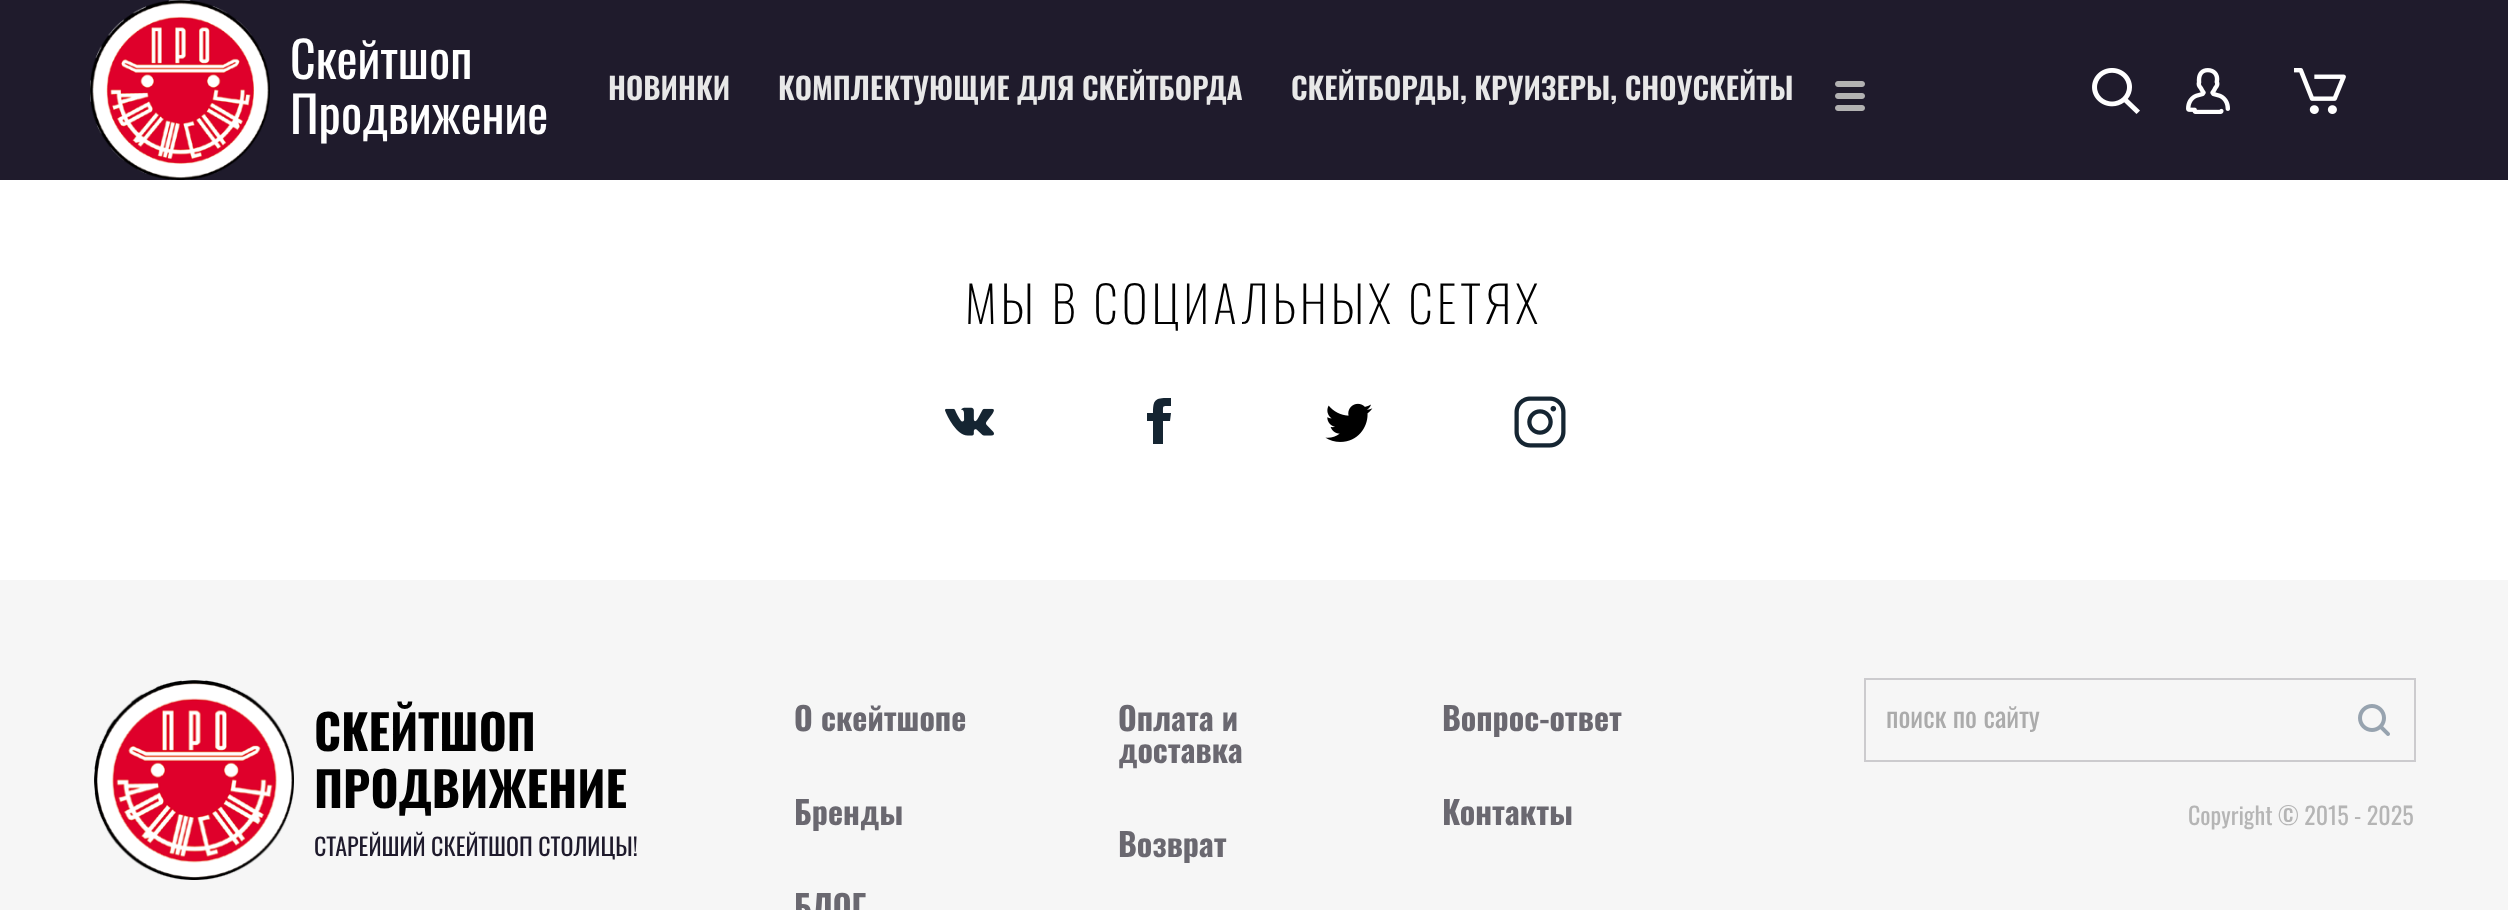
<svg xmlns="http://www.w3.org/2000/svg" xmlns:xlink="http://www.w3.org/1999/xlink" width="2508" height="910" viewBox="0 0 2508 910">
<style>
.cls-1{font:50px Oswald;fill:#ffffff}
.cls-2{font:600 30px Oswald;fill:#e8e8e8}
.cls-3{font:300 50px Oswald;letter-spacing:4px;fill:#000000}
.cls-4{font:bold 48px Oswald;fill:#000000}
.cls-5{font:24px Oswald;fill:#1e1a2c}
.cls-6{font:bold 32px Oswald;fill:#6a6870}
.cls-7{font:28px Oswald;fill:#ababab}
.cls-8{font:24px Oswald;fill:#b5b5b5}
</style>
<rect width="100%" height="100%" fill="#ffffff"/>
<rect fill="#1f1b2c" x="0" y="0" width="2508" height="180"/>
<image xlink:href="image0.png" x="90" y="0" width="180" height="180"/>
<image xlink:href="image1.png" x="1835" y="81" width="30" height="30"/>
<image xlink:href="image2.png" x="2092" y="68" width="48" height="46"/>
<image xlink:href="image3.png" x="2186" y="68" width="44" height="46"/>
<image xlink:href="image4.png" x="2294" y="68" width="52" height="46"/>
<image xlink:href="image5.png" x="945" y="407" width="49" height="29"/>
<path fill="#152532" d="M1163 413C1163 405 1162 406 1171 406V398C1156 398 1153 398 1153 413H1147V421H1153V444H1163V421H1170L1171 413Z"/>
<image xlink:href="image6.png" x="1325" y="403" width="48" height="39"/>
<image xlink:href="image7.png" x="1514" y="396" width="52" height="52"/>
<rect fill="#f6f6f6" x="0" y="580" width="2508" height="330"/>
<image xlink:href="image8.png" x="94" y="680" width="200" height="200"/>
<rect fill="none" stroke="#cccbce" stroke-width="2" x="1865" y="679" width="550" height="82"/>
<image xlink:href="image9.png" x="2358" y="704" width="32" height="32"/>
<text class="cls-1"><tspan x="290" y="79">Скейтшоп</tspan><tspan x="290" y="134">Продвижение</tspan></text>
<text class="cls-2" x="608" y="100">НОВИНКИ</text>
<text class="cls-2" x="778" y="100">КОМПЛЕКТУЮЩИЕ ДЛЯ СКЕЙТБОРДА</text>
<text class="cls-2" x="1291" y="100">СКЕЙТБОРДЫ, КРУИЗЕРЫ, СНОУСКЕЙТЫ</text>
<text class="cls-3" x="965" y="324">МЫ В СОЦИАЛЬНЫХ СЕТЯХ</text>
<text class="cls-4"><tspan x="314" y="751">СКЕЙТШОП</tspan><tspan x="314" y="808">ПРОДВИЖЕНИЕ</tspan></text>
<text class="cls-5" x="314" y="856">СТАРЕЙШИЙ СКЕЙТШОП СТОЛИЦЫ!</text>
<text class="cls-6" x="794" y="731">О скейтшопе</text>
<text class="cls-6" x="794" y="825">Бренды</text>
<text class="cls-6" x="794" y="919">БЛОГ</text>
<text class="cls-6"><tspan x="1118" y="731">Оплата и</tspan><tspan x="1118" y="763">доставка</tspan></text>
<text class="cls-6" x="1118" y="857">Возврат</text>
<text class="cls-6" x="1442" y="731">Вопрос-ответ</text>
<text class="cls-6" x="1442" y="825">Контакты</text>
<text class="cls-7" x="1886" y="728">поиск по сайту</text>
<text class="cls-8" x="2188" y="825">Copyright © 2015 - 2025</text>
</svg>
